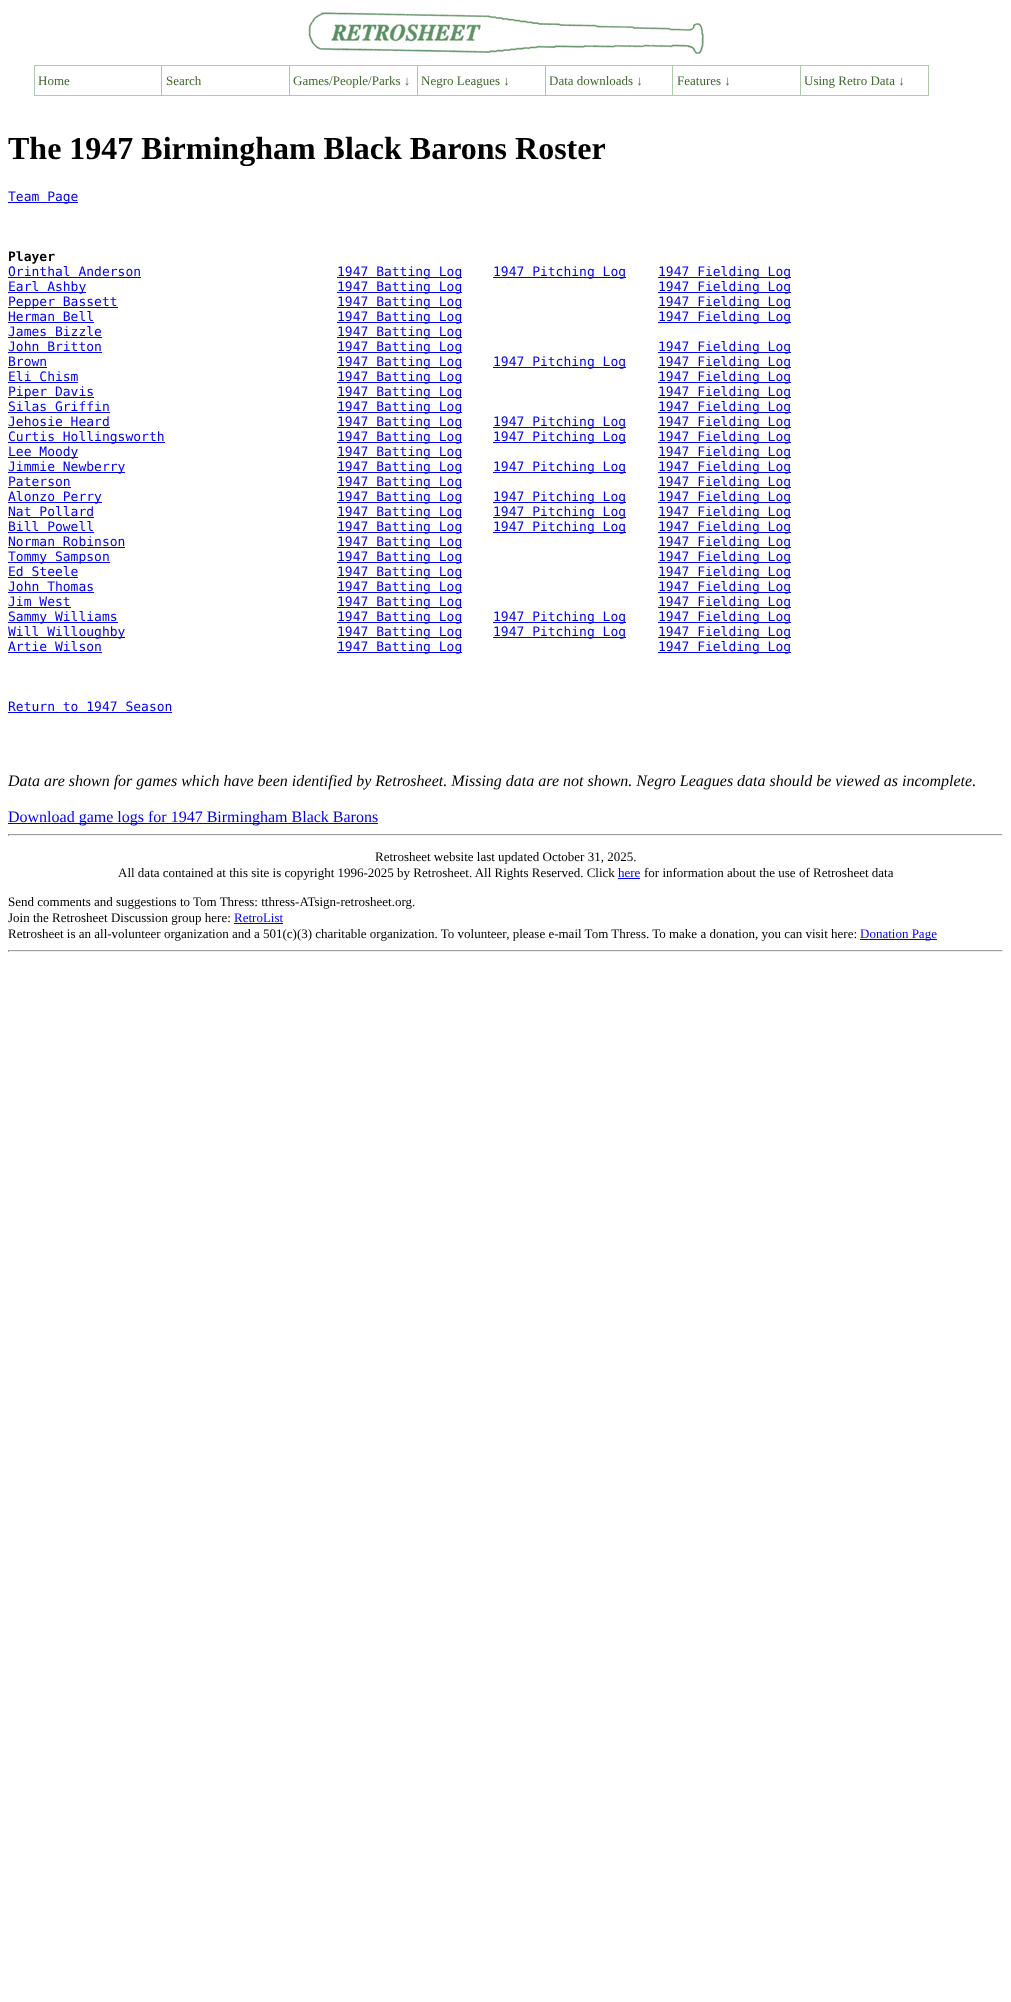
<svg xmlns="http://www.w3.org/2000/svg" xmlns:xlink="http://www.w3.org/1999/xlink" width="1011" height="2002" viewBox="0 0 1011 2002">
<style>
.cls-1{font:13px Liberation Serif;fill:#406830}
.cls-2{font:bold 32px Liberation Serif;fill:#000000}
.cls-3{font:13px DejaVu Sans Mono;fill:#0000ee}
.cls-4{font:bold 13px DejaVu Sans Mono;fill:#000000}
.cls-5{font:italic 16px Liberation Serif;fill:#000000}
.cls-6{font:16px Liberation Serif;fill:#0000ee}
.cls-7{font:13px Liberation Serif;fill:#000000}
.cls-8{font:13px Liberation Serif;fill:#0000ee}
</style>
<rect width="100%" height="100%" fill="#ffffff"/>
<image xlink:href="image0.png" x="308" y="12" width="396" height="42"/>
<rect fill="#aec9aa" x="928" y="65" width="1" height="31"/>
<rect fill="#aec9aa" x="34" y="95" width="895" height="1"/>
<rect fill="#aec9aa" x="34" y="65" width="894" height="1"/>
<rect fill="#aec9aa" x="34" y="65" width="1" height="30"/>
<rect fill="#aec9aa" x="161" y="65" width="1" height="30"/>
<rect fill="#aec9aa" x="289" y="65" width="1" height="30"/>
<rect fill="#aec9aa" x="417" y="65" width="1" height="30"/>
<rect fill="#aec9aa" x="545" y="65" width="1" height="30"/>
<rect fill="#aec9aa" x="672" y="65" width="1" height="30"/>
<rect fill="#aec9aa" x="800" y="65" width="1" height="30"/>
<rect fill="#0000ee" x="8" y="202" width="70" height="1"/>
<rect fill="#0000ee" x="8" y="277" width="133" height="1"/>
<rect fill="#0000ee" x="337" y="277" width="125" height="1"/>
<rect fill="#0000ee" x="493" y="277" width="133" height="1"/>
<rect fill="#0000ee" x="658" y="277" width="133" height="1"/>
<rect fill="#0000ee" x="8" y="292" width="78" height="1"/>
<rect fill="#0000ee" x="337" y="292" width="125" height="1"/>
<rect fill="#0000ee" x="658" y="292" width="133" height="1"/>
<rect fill="#0000ee" x="8" y="307" width="110" height="1"/>
<rect fill="#0000ee" x="337" y="307" width="125" height="1"/>
<rect fill="#0000ee" x="658" y="307" width="133" height="1"/>
<rect fill="#0000ee" x="8" y="322" width="86" height="1"/>
<rect fill="#0000ee" x="337" y="322" width="125" height="1"/>
<rect fill="#0000ee" x="658" y="322" width="133" height="1"/>
<rect fill="#0000ee" x="8" y="337" width="94" height="1"/>
<rect fill="#0000ee" x="337" y="337" width="125" height="1"/>
<rect fill="#0000ee" x="8" y="352" width="94" height="1"/>
<rect fill="#0000ee" x="337" y="352" width="125" height="1"/>
<rect fill="#0000ee" x="658" y="352" width="133" height="1"/>
<rect fill="#0000ee" x="8" y="367" width="39" height="1"/>
<rect fill="#0000ee" x="337" y="367" width="125" height="1"/>
<rect fill="#0000ee" x="493" y="367" width="133" height="1"/>
<rect fill="#0000ee" x="658" y="367" width="133" height="1"/>
<rect fill="#0000ee" x="8" y="382" width="70" height="1"/>
<rect fill="#0000ee" x="337" y="382" width="125" height="1"/>
<rect fill="#0000ee" x="658" y="382" width="133" height="1"/>
<rect fill="#0000ee" x="8" y="397" width="86" height="1"/>
<rect fill="#0000ee" x="337" y="397" width="125" height="1"/>
<rect fill="#0000ee" x="658" y="397" width="133" height="1"/>
<rect fill="#0000ee" x="8" y="412" width="102" height="1"/>
<rect fill="#0000ee" x="337" y="412" width="125" height="1"/>
<rect fill="#0000ee" x="658" y="412" width="133" height="1"/>
<rect fill="#0000ee" x="8" y="427" width="102" height="1"/>
<rect fill="#0000ee" x="337" y="427" width="125" height="1"/>
<rect fill="#0000ee" x="493" y="427" width="133" height="1"/>
<rect fill="#0000ee" x="658" y="427" width="133" height="1"/>
<rect fill="#0000ee" x="8" y="442" width="157" height="1"/>
<rect fill="#0000ee" x="337" y="442" width="125" height="1"/>
<rect fill="#0000ee" x="493" y="442" width="133" height="1"/>
<rect fill="#0000ee" x="658" y="442" width="133" height="1"/>
<rect fill="#0000ee" x="8" y="457" width="70" height="1"/>
<rect fill="#0000ee" x="337" y="457" width="125" height="1"/>
<rect fill="#0000ee" x="658" y="457" width="133" height="1"/>
<rect fill="#0000ee" x="8" y="472" width="117" height="1"/>
<rect fill="#0000ee" x="337" y="472" width="125" height="1"/>
<rect fill="#0000ee" x="493" y="472" width="133" height="1"/>
<rect fill="#0000ee" x="658" y="472" width="133" height="1"/>
<rect fill="#0000ee" x="8" y="487" width="63" height="1"/>
<rect fill="#0000ee" x="337" y="487" width="125" height="1"/>
<rect fill="#0000ee" x="658" y="487" width="133" height="1"/>
<rect fill="#0000ee" x="8" y="502" width="94" height="1"/>
<rect fill="#0000ee" x="337" y="502" width="125" height="1"/>
<rect fill="#0000ee" x="493" y="502" width="133" height="1"/>
<rect fill="#0000ee" x="658" y="502" width="133" height="1"/>
<rect fill="#0000ee" x="8" y="517" width="86" height="1"/>
<rect fill="#0000ee" x="337" y="517" width="125" height="1"/>
<rect fill="#0000ee" x="493" y="517" width="133" height="1"/>
<rect fill="#0000ee" x="658" y="517" width="133" height="1"/>
<rect fill="#0000ee" x="8" y="532" width="86" height="1"/>
<rect fill="#0000ee" x="337" y="532" width="125" height="1"/>
<rect fill="#0000ee" x="493" y="532" width="133" height="1"/>
<rect fill="#0000ee" x="658" y="532" width="133" height="1"/>
<rect fill="#0000ee" x="8" y="547" width="117" height="1"/>
<rect fill="#0000ee" x="337" y="547" width="125" height="1"/>
<rect fill="#0000ee" x="658" y="547" width="133" height="1"/>
<rect fill="#0000ee" x="8" y="562" width="102" height="1"/>
<rect fill="#0000ee" x="337" y="562" width="125" height="1"/>
<rect fill="#0000ee" x="658" y="562" width="133" height="1"/>
<rect fill="#0000ee" x="8" y="577" width="70" height="1"/>
<rect fill="#0000ee" x="337" y="577" width="125" height="1"/>
<rect fill="#0000ee" x="658" y="577" width="133" height="1"/>
<rect fill="#0000ee" x="8" y="592" width="86" height="1"/>
<rect fill="#0000ee" x="337" y="592" width="125" height="1"/>
<rect fill="#0000ee" x="658" y="592" width="133" height="1"/>
<rect fill="#0000ee" x="8" y="607" width="63" height="1"/>
<rect fill="#0000ee" x="337" y="607" width="125" height="1"/>
<rect fill="#0000ee" x="658" y="607" width="133" height="1"/>
<rect fill="#0000ee" x="8" y="622" width="110" height="1"/>
<rect fill="#0000ee" x="337" y="622" width="125" height="1"/>
<rect fill="#0000ee" x="493" y="622" width="133" height="1"/>
<rect fill="#0000ee" x="658" y="622" width="133" height="1"/>
<rect fill="#0000ee" x="8" y="637" width="117" height="1"/>
<rect fill="#0000ee" x="337" y="637" width="125" height="1"/>
<rect fill="#0000ee" x="493" y="637" width="133" height="1"/>
<rect fill="#0000ee" x="658" y="637" width="133" height="1"/>
<rect fill="#0000ee" x="8" y="652" width="94" height="1"/>
<rect fill="#0000ee" x="337" y="652" width="125" height="1"/>
<rect fill="#0000ee" x="658" y="652" width="133" height="1"/>
<rect fill="#0000ee" x="8" y="712" width="164" height="1"/>
<rect fill="#0000ee" x="8" y="823" width="370" height="1"/>
<rect fill="#9f9f9f" x="8" y="834" width="995" height="1"/>
<rect fill="#eeeeee" x="1002" y="834" width="1" height="2"/>
<rect fill="#eeeeee" x="8" y="835" width="995" height="1"/>
<rect fill="#9f9f9f" x="8" y="834" width="1" height="2"/>
<rect fill="#0000ee" x="618" y="878" width="22" height="1"/>
<rect fill="#0000ee" x="234" y="923" width="49" height="1"/>
<rect fill="#0000ee" x="860" y="939" width="77" height="1"/>
<rect fill="#9f9f9f" x="8" y="950" width="995" height="1"/>
<rect fill="#eeeeee" x="1002" y="950" width="1" height="2"/>
<rect fill="#eeeeee" x="8" y="951" width="995" height="1"/>
<rect fill="#9f9f9f" x="8" y="950" width="1" height="2"/>
<text class="cls-1" x="38" y="85">Home</text>
<text class="cls-1" x="166" y="85">Search</text>
<text class="cls-1" x="293" y="85">Games/People/Parks ↓</text>
<text class="cls-1" x="421" y="85">Negro Leagues ↓</text>
<text class="cls-1" x="549" y="85">Data downloads ↓</text>
<text class="cls-1" x="677" y="85">Features ↓</text>
<text class="cls-1" x="804" y="85">Using Retro Data ↓</text>
<text class="cls-2" x="8" y="159">The 1947 Birmingham Black Barons Roster</text>
<text class="cls-3" x="8" y="201">Team Page</text>
<text class="cls-4" x="8" y="261">Player</text>
<text class="cls-3" x="8" y="276">Orinthal Anderson</text>
<text class="cls-3" x="337" y="276">1947 Batting Log</text>
<text class="cls-3" x="493" y="276">1947 Pitching Log</text>
<text class="cls-3" x="658" y="276">1947 Fielding Log</text>
<text class="cls-3" x="8" y="291">Earl Ashby</text>
<text class="cls-3" x="337" y="291">1947 Batting Log</text>
<text class="cls-3" x="658" y="291">1947 Fielding Log</text>
<text class="cls-3" x="8" y="306">Pepper Bassett</text>
<text class="cls-3" x="337" y="306">1947 Batting Log</text>
<text class="cls-3" x="658" y="306">1947 Fielding Log</text>
<text class="cls-3" x="8" y="321">Herman Bell</text>
<text class="cls-3" x="337" y="321">1947 Batting Log</text>
<text class="cls-3" x="658" y="321">1947 Fielding Log</text>
<text class="cls-3" x="8" y="336">James Bizzle</text>
<text class="cls-3" x="337" y="336">1947 Batting Log</text>
<text class="cls-3" x="8" y="351">John Britton</text>
<text class="cls-3" x="337" y="351">1947 Batting Log</text>
<text class="cls-3" x="658" y="351">1947 Fielding Log</text>
<text class="cls-3" x="8" y="366">Brown</text>
<text class="cls-3" x="337" y="366">1947 Batting Log</text>
<text class="cls-3" x="493" y="366">1947 Pitching Log</text>
<text class="cls-3" x="658" y="366">1947 Fielding Log</text>
<text class="cls-3" x="8" y="381">Eli Chism</text>
<text class="cls-3" x="337" y="381">1947 Batting Log</text>
<text class="cls-3" x="658" y="381">1947 Fielding Log</text>
<text class="cls-3" x="8" y="396">Piper Davis</text>
<text class="cls-3" x="337" y="396">1947 Batting Log</text>
<text class="cls-3" x="658" y="396">1947 Fielding Log</text>
<text class="cls-3" x="8" y="411">Silas Griffin</text>
<text class="cls-3" x="337" y="411">1947 Batting Log</text>
<text class="cls-3" x="658" y="411">1947 Fielding Log</text>
<text class="cls-3" x="8" y="426">Jehosie Heard</text>
<text class="cls-3" x="337" y="426">1947 Batting Log</text>
<text class="cls-3" x="493" y="426">1947 Pitching Log</text>
<text class="cls-3" x="658" y="426">1947 Fielding Log</text>
<text class="cls-3" x="8" y="441">Curtis Hollingsworth</text>
<text class="cls-3" x="337" y="441">1947 Batting Log</text>
<text class="cls-3" x="493" y="441">1947 Pitching Log</text>
<text class="cls-3" x="658" y="441">1947 Fielding Log</text>
<text class="cls-3" x="8" y="456">Lee Moody</text>
<text class="cls-3" x="337" y="456">1947 Batting Log</text>
<text class="cls-3" x="658" y="456">1947 Fielding Log</text>
<text class="cls-3" x="8" y="471">Jimmie Newberry</text>
<text class="cls-3" x="337" y="471">1947 Batting Log</text>
<text class="cls-3" x="493" y="471">1947 Pitching Log</text>
<text class="cls-3" x="658" y="471">1947 Fielding Log</text>
<text class="cls-3" x="8" y="486">Paterson</text>
<text class="cls-3" x="337" y="486">1947 Batting Log</text>
<text class="cls-3" x="658" y="486">1947 Fielding Log</text>
<text class="cls-3" x="8" y="501">Alonzo Perry</text>
<text class="cls-3" x="337" y="501">1947 Batting Log</text>
<text class="cls-3" x="493" y="501">1947 Pitching Log</text>
<text class="cls-3" x="658" y="501">1947 Fielding Log</text>
<text class="cls-3" x="8" y="516">Nat Pollard</text>
<text class="cls-3" x="337" y="516">1947 Batting Log</text>
<text class="cls-3" x="493" y="516">1947 Pitching Log</text>
<text class="cls-3" x="658" y="516">1947 Fielding Log</text>
<text class="cls-3" x="8" y="531">Bill Powell</text>
<text class="cls-3" x="337" y="531">1947 Batting Log</text>
<text class="cls-3" x="493" y="531">1947 Pitching Log</text>
<text class="cls-3" x="658" y="531">1947 Fielding Log</text>
<text class="cls-3" x="8" y="546">Norman Robinson</text>
<text class="cls-3" x="337" y="546">1947 Batting Log</text>
<text class="cls-3" x="658" y="546">1947 Fielding Log</text>
<text class="cls-3" x="8" y="561">Tommy Sampson</text>
<text class="cls-3" x="337" y="561">1947 Batting Log</text>
<text class="cls-3" x="658" y="561">1947 Fielding Log</text>
<text class="cls-3" x="8" y="576">Ed Steele</text>
<text class="cls-3" x="337" y="576">1947 Batting Log</text>
<text class="cls-3" x="658" y="576">1947 Fielding Log</text>
<text class="cls-3" x="8" y="591">John Thomas</text>
<text class="cls-3" x="337" y="591">1947 Batting Log</text>
<text class="cls-3" x="658" y="591">1947 Fielding Log</text>
<text class="cls-3" x="8" y="606">Jim West</text>
<text class="cls-3" x="337" y="606">1947 Batting Log</text>
<text class="cls-3" x="658" y="606">1947 Fielding Log</text>
<text class="cls-3" x="8" y="621">Sammy Williams</text>
<text class="cls-3" x="337" y="621">1947 Batting Log</text>
<text class="cls-3" x="493" y="621">1947 Pitching Log</text>
<text class="cls-3" x="658" y="621">1947 Fielding Log</text>
<text class="cls-3" x="8" y="636">Will Willoughby</text>
<text class="cls-3" x="337" y="636">1947 Batting Log</text>
<text class="cls-3" x="493" y="636">1947 Pitching Log</text>
<text class="cls-3" x="658" y="636">1947 Fielding Log</text>
<text class="cls-3" x="8" y="651">Artie Wilson</text>
<text class="cls-3" x="337" y="651">1947 Batting Log</text>
<text class="cls-3" x="658" y="651">1947 Fielding Log</text>
<text class="cls-3" x="8" y="711">Return to 1947 Season</text>
<text class="cls-5" x="8" y="786">Data are shown for games which have been identified by Retrosheet. Missing data are not shown. Negro Leagues data should be viewed as incomplete.</text>
<text class="cls-6" x="8" y="822">Download game logs for 1947 Birmingham Black Barons</text>
<text class="cls-7" x="375" y="861">Retrosheet website last updated October 31, 2025.</text>
<text class="cls-7" x="118" y="877">All data contained at this site is copyright 1996-2025 by Retrosheet. All Rights Reserved. Click</text>
<text class="cls-8" x="618" y="877">here</text>
<text class="cls-7" x="644" y="877">for information about the use of Retrosheet data</text>
<text class="cls-7"><tspan x="8" y="906">Send comments and suggestions to Tom Thress: tthress-ATsign-retrosheet.org.</tspan><tspan x="8" y="922">Join the Retrosheet Discussion group here:</tspan></text>
<text class="cls-8" x="234" y="922">RetroList</text>
<text class="cls-7" x="8" y="938">Retrosheet is an all-volunteer organization and a 501(c)(3) charitable organization. To volunteer, please e-mail Tom Thress. To make a donation, you can visit here:</text>
<text class="cls-8" x="860" y="938">Donation Page</text>
</svg>
